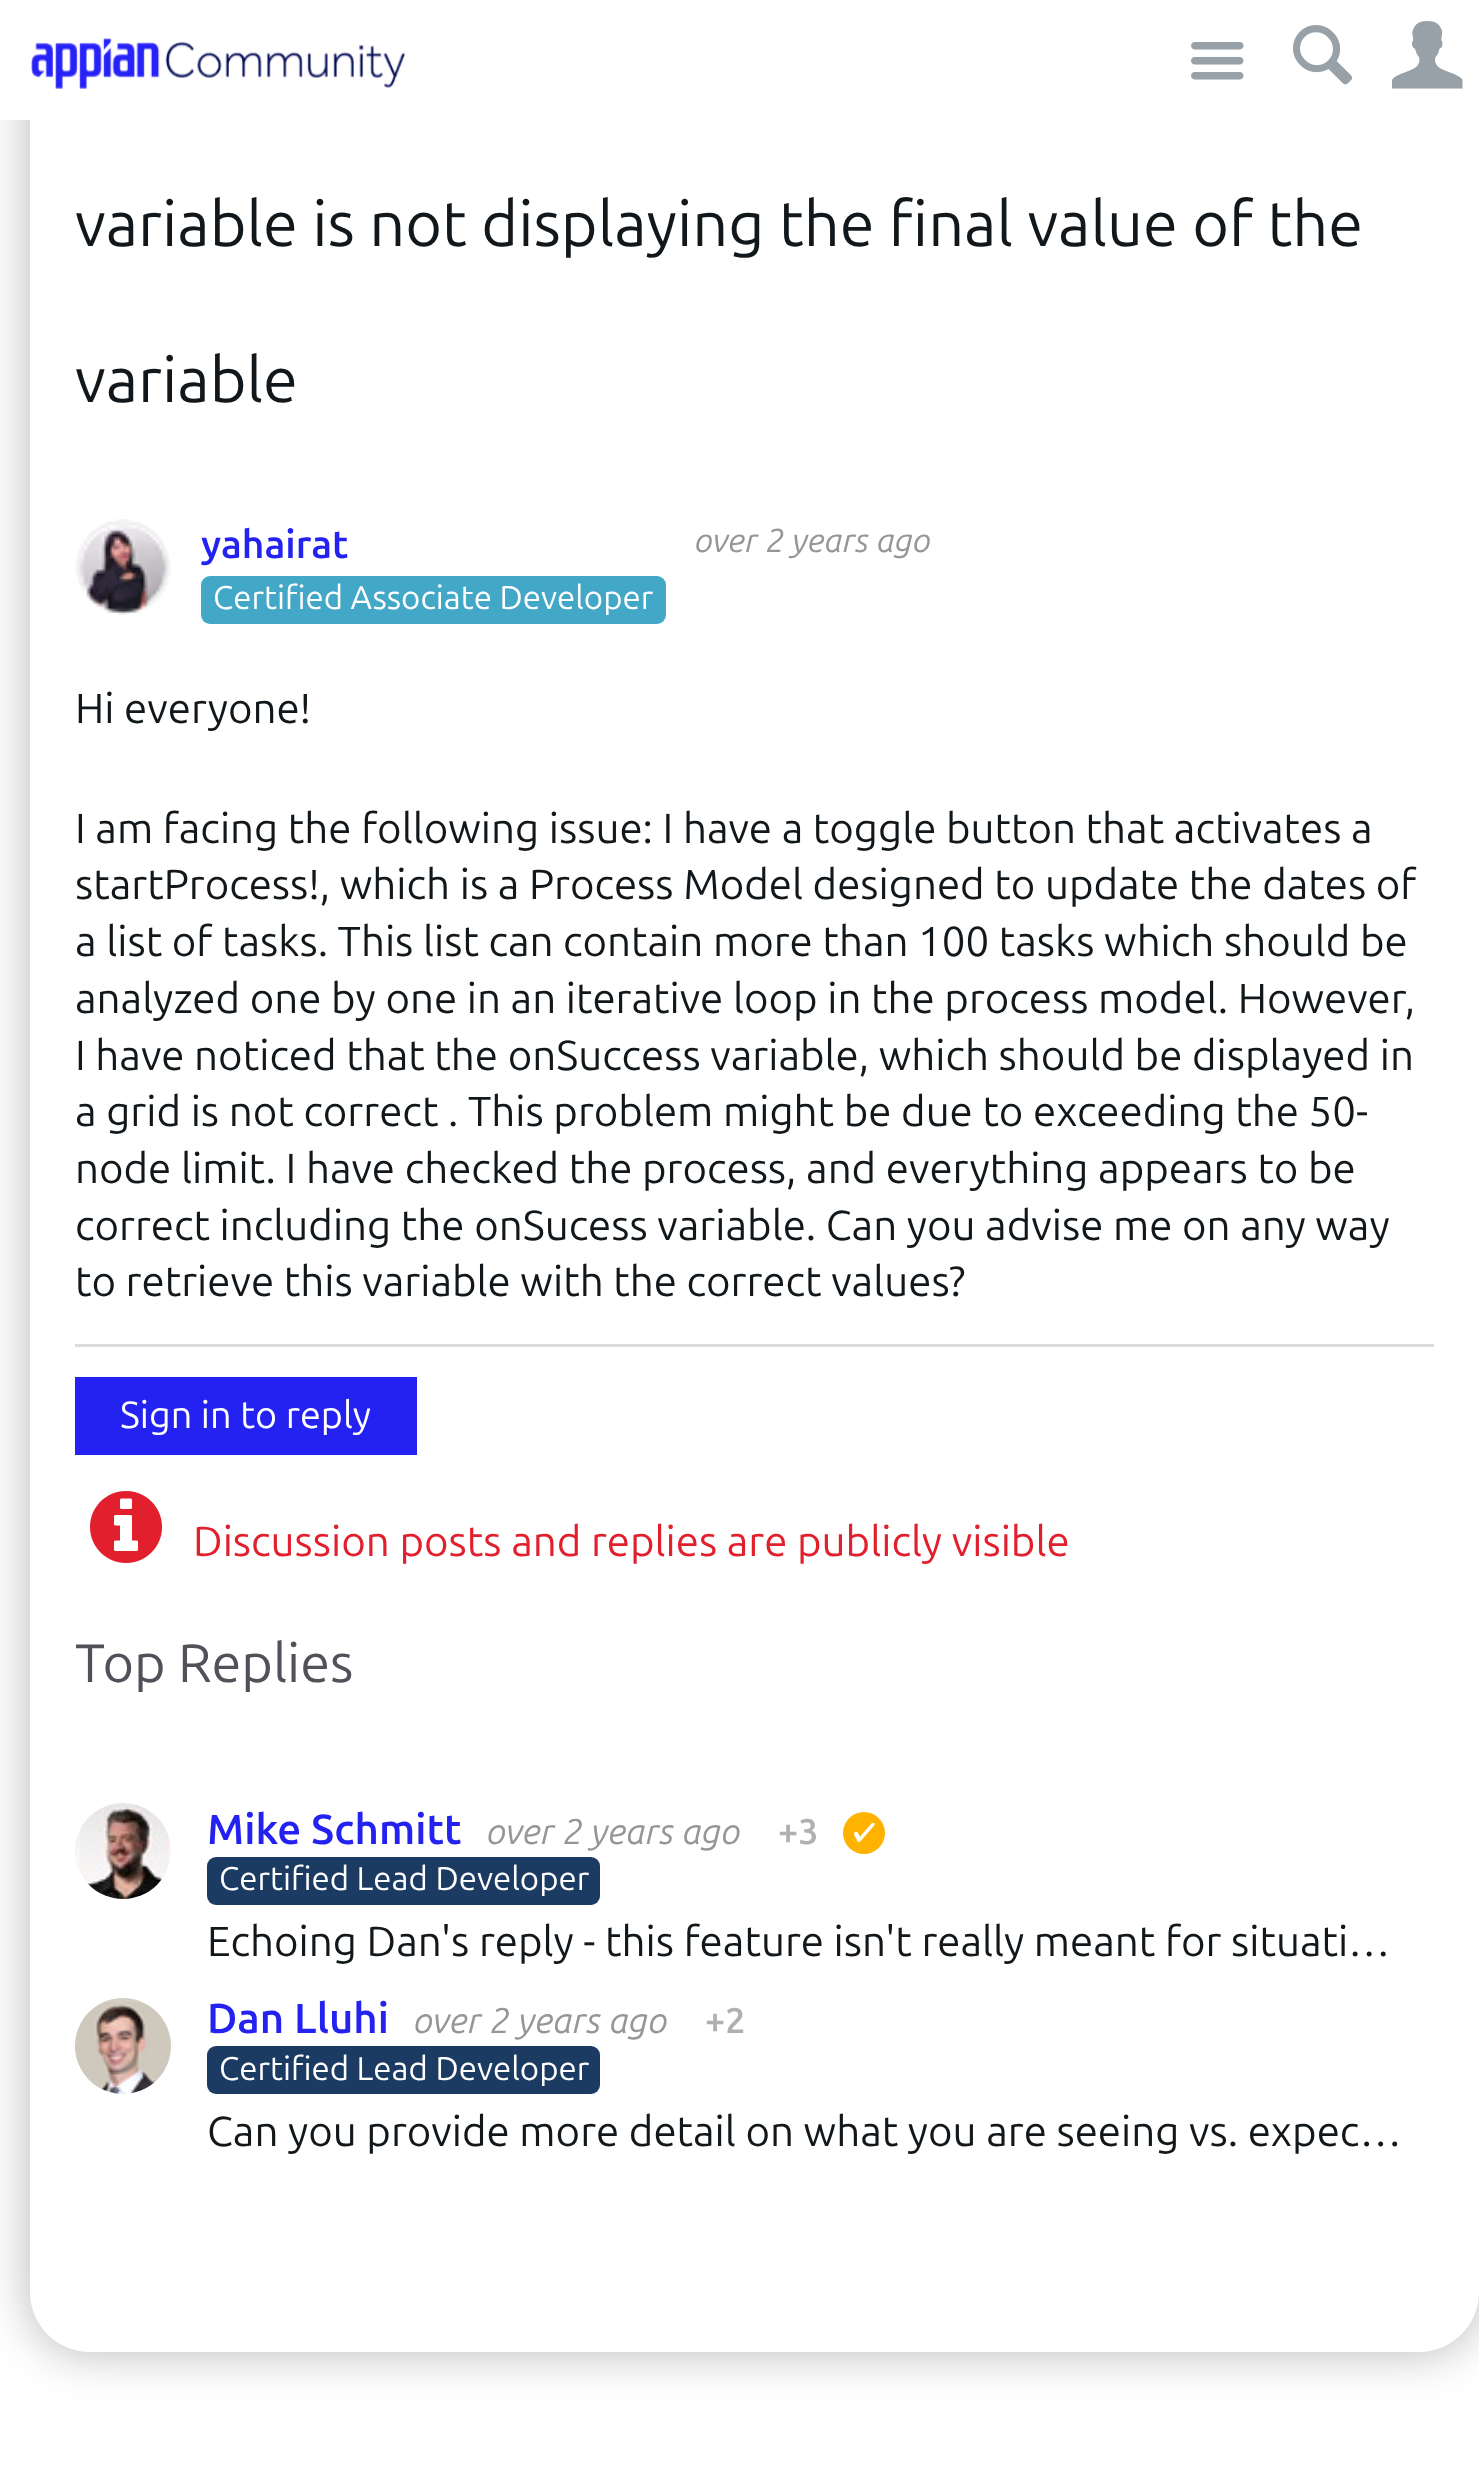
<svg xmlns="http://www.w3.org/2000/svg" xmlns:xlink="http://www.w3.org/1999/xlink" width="1479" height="2465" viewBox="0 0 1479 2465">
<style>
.cls-1{font:63px Ubuntu Sans;fill:#11171a}
.cls-2{font:600 39px Ubuntu Sans;fill:#2322f0}
.cls-3{font:33px Ubuntu Sans;fill:#ffffff}
.cls-4{font:italic 33.25px Ubuntu Sans;fill:#949798}
.cls-5{font:42px Ubuntu Sans;fill:#11171a}
.cls-6{font:37.75px Ubuntu Sans;fill:#ffffff}
.cls-7{font:42px Ubuntu Sans;fill:#e2202d}
.cls-8{font:54px Ubuntu Sans;fill:#515159}
.cls-9{font:600 42px Ubuntu Sans;fill:#2322f0}
.cls-10{font:italic 35.75px Ubuntu Sans;fill:#949798}
.cls-11{font:600 35.75px Ubuntu Sans;fill:#aeb0b1}
</style>
<defs>
<clipPath id="clip1"><path d="M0 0H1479V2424H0ZM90-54H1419C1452-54 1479-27 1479 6V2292C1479 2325 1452 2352 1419 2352H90C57 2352 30 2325 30 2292V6C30-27 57-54 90-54Z" clip-rule="evenodd"/></clipPath>
</defs>
<rect width="100%" height="100%" fill="#ffffff"/>
<g clip-path="url(#clip1)">
<rect fill="#000000" fill-opacity="0.25" filter="blur(22.5px)" x="27" y="-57" width="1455" height="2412" rx="63"/>
</g>
<rect fill="#ffffff" x="0" y="0" width="1479" height="120"/>
<image xlink:href="image0.png" x="31" y="38" width="374" height="51"/>
<image xlink:href="image1.png" x="1191" y="42" width="53" height="38"/>
<image xlink:href="image2.png" x="1293" y="25" width="60" height="60"/>
<image xlink:href="image3.png" x="1392" y="21" width="71" height="68"/>
<image xlink:href="image4.png" x="75" y="519" width="96" height="96"/>
<rect fill="#43a8c7" x="201" y="576" width="465" height="48" rx="9"/>
<rect fill="#dbdcdd" x="75" y="1344" width="1359" height="3"/>
<rect fill="#2322f0" x="75" y="1377" width="342" height="78"/>
<image xlink:href="image5.png" x="90" y="1491" width="72" height="72"/>
<image xlink:href="image6.png" x="75" y="1803" width="96" height="96"/>
<circle fill="#ffb300" cx="864" cy="1833" r="21"/>
<image xlink:href="image7.png" x="854" y="1822" width="21" height="20"/>
<rect fill="#1c3b63" x="207" y="1857" width="393" height="48" rx="9"/>
<image xlink:href="image8.png" x="75" y="1998" width="96" height="96"/>
<rect fill="#1c3b63" x="207" y="2046" width="393" height="48" rx="9"/>
<text class="cls-1" x="75" y="246">variable is not displaying the final value of the</text>
<text class="cls-1" x="75" y="402">variable</text>
<text class="cls-2" x="201" y="558">yahairat</text>
<text class="cls-3" x="213" y="609">Certified Associate Developer</text>
<text class="cls-4" x="695" y="552">over 2 years ago</text>
<text class="cls-5" x="75" y="723">Hi everyone!</text>
<text class="cls-5"><tspan x="75" y="843">I am facing the following issue: I have a toggle button that activates a</tspan><tspan x="75" y="899">startProcess!, which is a Process Model designed to update the dates of</tspan><tspan x="75" y="956">a list of tasks. This list can contain more than 100 tasks which should be</tspan><tspan x="75" y="1013">analyzed one by one in an iterative loop in the process model. However,</tspan><tspan x="75" y="1070">I have noticed that the onSuccess variable, which should be displayed in</tspan><tspan x="75" y="1126">a grid is not correct . This problem might be due to exceeding the 50-</tspan><tspan x="75" y="1183">node limit. I have checked the process, and everything appears to be</tspan><tspan x="75" y="1240">correct including the onSucess variable. Can you advise me on any way</tspan><tspan x="75" y="1296">to retrieve this variable with the correct values?</tspan></text>
<text class="cls-6" x="120" y="1428">Sign in to reply</text>
<text class="cls-7" x="193" y="1556">Discussion posts and replies are publicly visible</text>
<text class="cls-8" x="75" y="1682">Top Replies</text>
<text class="cls-9" x="207" y="1844">Mike Schmitt</text>
<text class="cls-10" x="487" y="1844">over 2 years ago</text>
<text class="cls-11" x="778" y="1844">+3</text>
<text class="cls-3" x="219" y="1890">Certified Lead Developer</text>
<text class="cls-5" x="207" y="1956">Echoing Dan's reply - this feature isn't really meant for situati…</text>
<text class="cls-9" x="207" y="2033">Dan Lluhi</text>
<text class="cls-10" x="414" y="2033">over 2 years ago</text>
<text class="cls-11" x="705" y="2033">+2</text>
<text class="cls-3" x="219" y="2080">Certified Lead Developer</text>
<text class="cls-5" x="207" y="2146">Can you provide more detail on what you are seeing vs. expec…</text>
</svg>
